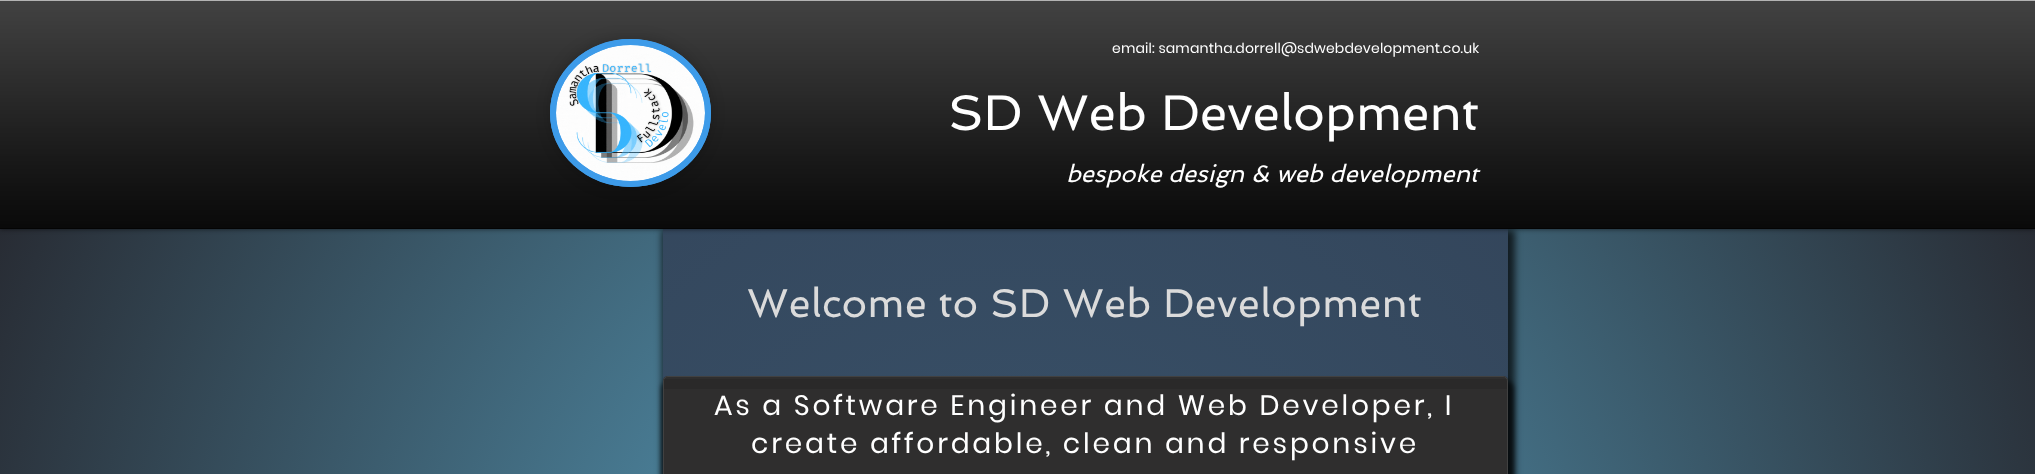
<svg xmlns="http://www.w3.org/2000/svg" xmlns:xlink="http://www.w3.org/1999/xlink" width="2035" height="474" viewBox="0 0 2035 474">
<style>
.cls-1{font:14px Poppins;letter-spacing:0.15px;fill:#ffffff}
.cls-2{font:50px Spinnaker;fill:#ffffff}
.cls-3{font:italic 24px Spinnaker;fill:#ffffff}
.cls-4{font:40px Spinnaker;letter-spacing:0.4px;fill:#dbdbdb}
.cls-5{font:28px Poppins;letter-spacing:2.8px;fill:#ffffff}
</style>
<defs>
<radialGradient id="g1" gradientUnits="userSpaceOnUse" cx="1018" cy="675" r="1111"><stop offset="0" stop-color="#5ba9ca"/><stop offset="1" stop-color="#282c34"/></radialGradient>
<radialGradient id="g2" gradientUnits="userSpaceOnUse" cx="1018" cy="675" r="1111"><stop offset="0" stop-color="#39526a"/><stop offset="1" stop-color="#303e52"/></radialGradient>
<clipPath id="clip1"><path d="M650 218H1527V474H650ZM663 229H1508V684H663Z" clip-rule="evenodd"/></clipPath>
</defs>
<rect width="100%" height="100%" fill="#ffffff"/>
<rect fill="url(#g1)" x="0" y="229" width="2035" height="245"/>
<rect fill="url(#g2)" x="663" y="229" width="845" height="152"/>
<rect fill="#000000" fill-opacity="0.6" filter="blur(2.5px)" x="0" y="0" width="2035" height="229"/>
<g clip-path="url(#clip1)">
<rect fill="#000000" fill-opacity="0.7" filter="blur(3.5px)" x="662" y="230" width="853" height="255"/>
</g>
<rect fill="#000000" x="0" y="1" width="2035" height="227"/>
<image xlink:href="image0.png" x="0" y="1" width="2035" height="227"/>
<rect fill="#040404" x="0" y="228" width="2035" height="1"/>
<rect fill="#b3b3b3" x="0" y="0" width="2035" height="1"/>
<rect fill="#000000" fill-opacity="0.2" filter="blur(7px)" x="550" y="39" width="161" height="148" rx="74"/>
<ellipse fill="#3d9be9" cx="630.5" cy="113" rx="80.5" ry="74"/>
<path fill="none" stroke="#3d9be9" stroke-width="6" d="M630.5 42C673.5 42 708 74 708 113C708 152 673.5 184 630.5 184C587.5 184 553 152 553 113C553 74 587.5 42 630.5 42Z"/>
<image xlink:href="image1.png" x="556" y="45" width="149" height="136"/>
<rect fill="#000000" fill-opacity="0.6" filter="blur(2px)" x="661" y="380" width="853" height="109" rx="9"/>
<rect fill="#2f2e2e" x="663" y="376" width="845" height="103" rx="5"/>
<rect fill="#000000" fill-opacity="0.09" x="663" y="379" width="845" height="10"/>
<rect fill="none" stroke="#414141" x="663.5" y="376.5" width="844" height="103" rx="4.5"/>
<text class="cls-1" x="1112" y="53">email: samantha.dorrell@sdwebdevelopment.co.uk</text>
<text class="cls-2" x="948" y="130">SD Web Development</text>
<text class="cls-3" x="1066" y="182">bespoke design &amp; web development</text>
<text class="cls-4" x="747" y="317">Welcome to SD Web Development</text>
<text class="cls-5" x="714" y="415">As a Software Engineer and Web Developer, I</text>
<text class="cls-5" x="751" y="453">create affordable, clean and responsive</text>
</svg>
